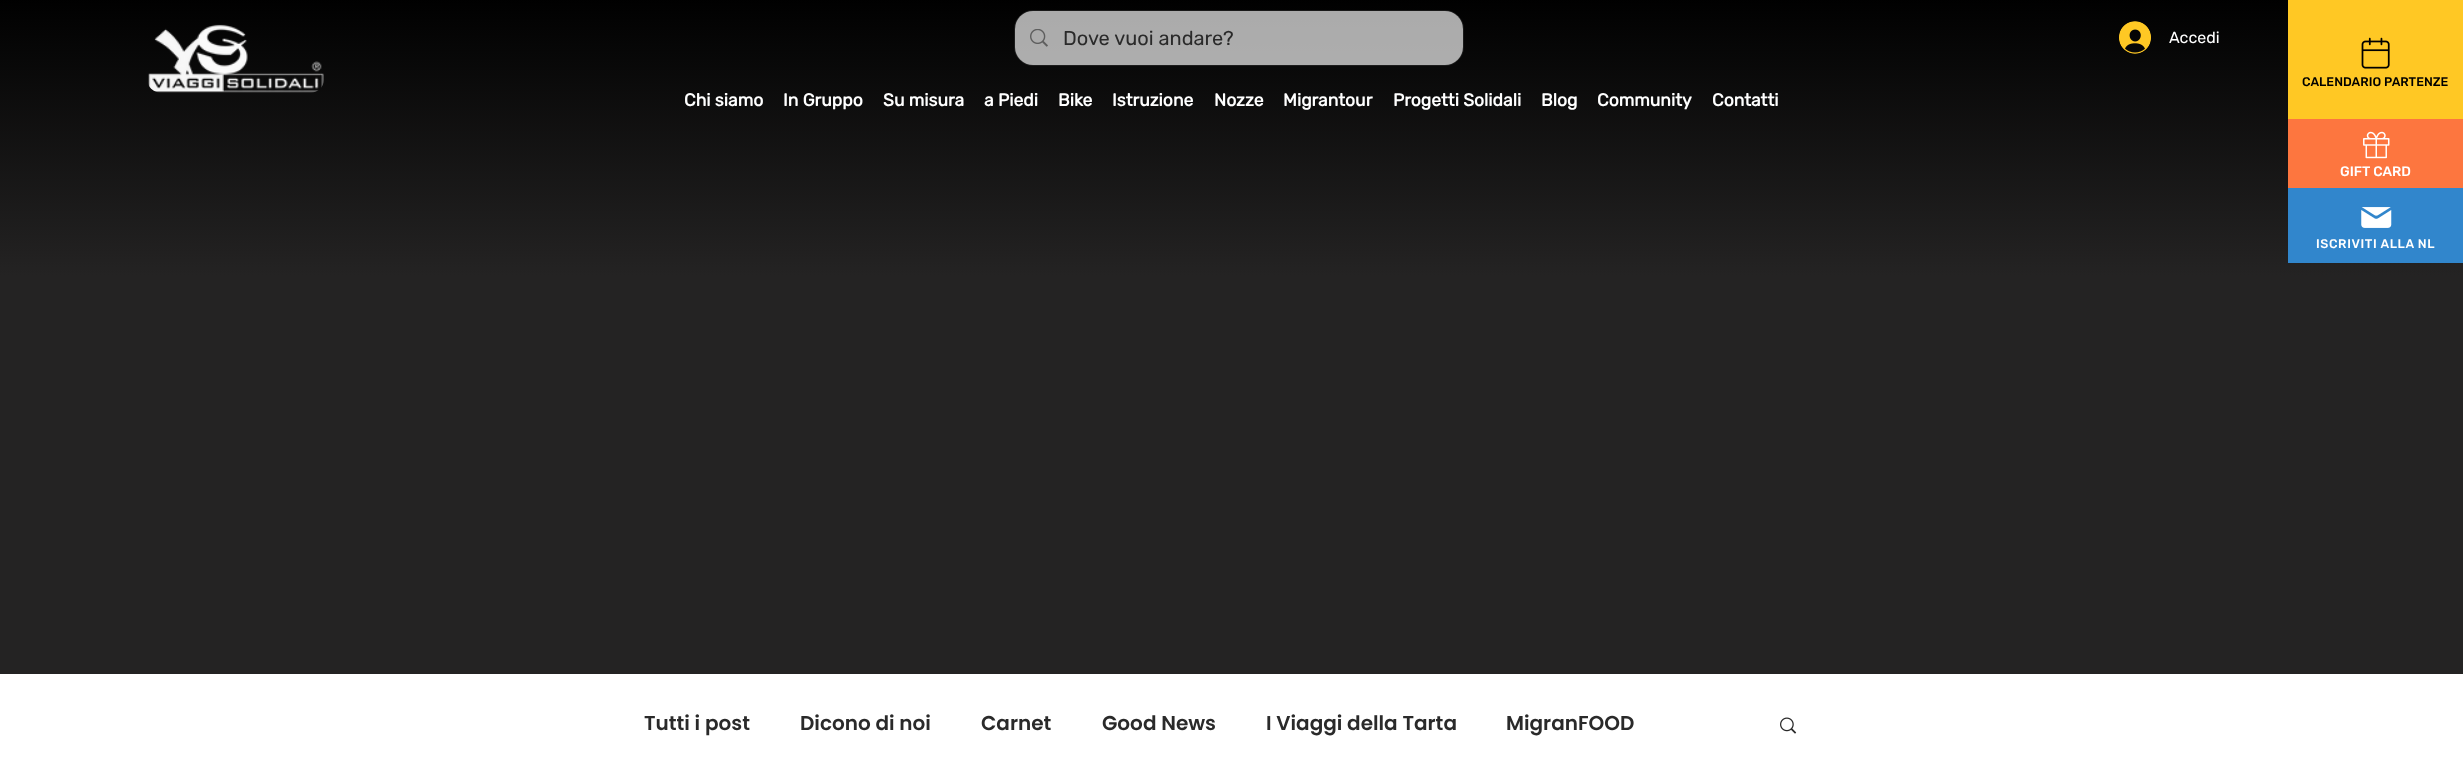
<svg xmlns="http://www.w3.org/2000/svg" xmlns:xlink="http://www.w3.org/1999/xlink" width="2463" height="768" viewBox="0 0 2463 768">
<style>
.cls-1{font:20px Rubik;fill:#2a2a2a}
.cls-2{font:bold 17.5px Rubik;fill:#ffffff}
.cls-3{font:16px Rubik;fill:#ffffff}
.cls-4{font:500 12.5px Rubik;fill:#000000}
.cls-5{font:500 13.75px 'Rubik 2';fill:#ffffff}
.cls-6{font:500 12.5px 'Rubik 2';letter-spacing:0.6px;fill:#ffffff}
.cls-7{font:600 20px Poppins;fill:#2a2a2a}
</style>
<defs>
<linearGradient id="g1" gradientUnits="userSpaceOnUse" x1="1232" y1="-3.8" x2="1232" y2="276"><stop offset="0" stop-color="#000000"/><stop offset="1" stop-color="#242323"/></linearGradient>
</defs>
<rect width="100%" height="100%" fill="#ffffff"/>
<rect fill="url(#g1)" x="0" y="0" width="2463" height="276"/>
<image xlink:href="image0.png" x="148" y="24" width="176" height="69"/>
<rect fill="none" stroke="#2a2a2a" stroke-opacity="0.6" x="1014.5" y="10.5" width="449" height="55" rx="18.5"/>
<rect fill="#ffffff" fill-opacity="0.67" x="1015" y="11" width="448" height="54" rx="18"/>
<image xlink:href="image1.png" x="1030" y="29" width="18" height="18"/>
<image xlink:href="image2.png" x="2119" y="21" width="32" height="33"/>
<rect fill="#ffc824" x="2288" y="0" width="175" height="119"/>
<image xlink:href="image3.png" x="2361" y="37" width="29" height="32"/>
<rect fill="#fd763f" x="2288" y="119" width="175" height="69"/>
<image xlink:href="image4.png" x="2363" y="131" width="27" height="28"/>
<rect fill="#3186cc" x="2288" y="188" width="175" height="75"/>
<image xlink:href="image5.png" x="2361" y="207" width="31" height="21"/>
<rect fill="#242323" x="0" y="276" width="2463" height="398"/>
<image xlink:href="image6.png" x="1780" y="717" width="17" height="17"/>
<text class="cls-1" x="1063" y="45">Dove vuoi andare?</text>
<text class="cls-2" x="684" y="106">Chi siamo</text>
<text class="cls-2" x="783" y="106">In Gruppo</text>
<text class="cls-2" x="883" y="106">Su misura</text>
<text class="cls-2" x="984" y="106">a Piedi</text>
<text class="cls-2" x="1058" y="106">Bike</text>
<text class="cls-2" x="1112" y="106">Istruzione</text>
<text class="cls-2" x="1214" y="106">Nozze</text>
<text class="cls-2" x="1283" y="106">Migrantour</text>
<text class="cls-2" x="1393" y="106">Progetti Solidali</text>
<text class="cls-2" x="1541" y="106">Blog</text>
<text class="cls-2" x="1597" y="106">Community</text>
<text class="cls-2" x="1712" y="106">Contatti</text>
<text class="cls-3" x="2169" y="43">Accedi</text>
<text class="cls-4" x="2302" y="86">CALENDARIO PARTENZE</text>
<text class="cls-5" x="2340" y="176">GIFT CARD</text>
<text class="cls-6" x="2316" y="248">ISCRIVITI ALLA NL</text>
<text class="cls-7" x="644" y="730">Tutti i post</text>
<text class="cls-7" x="800" y="730">Dicono di noi</text>
<text class="cls-7" x="981" y="730">Carnet</text>
<text class="cls-7" x="1102" y="730">Good News</text>
<text class="cls-7" x="1266" y="730">I Viaggi della Tarta</text>
<text class="cls-7" x="1506" y="730">MigranFOOD</text>
</svg>
